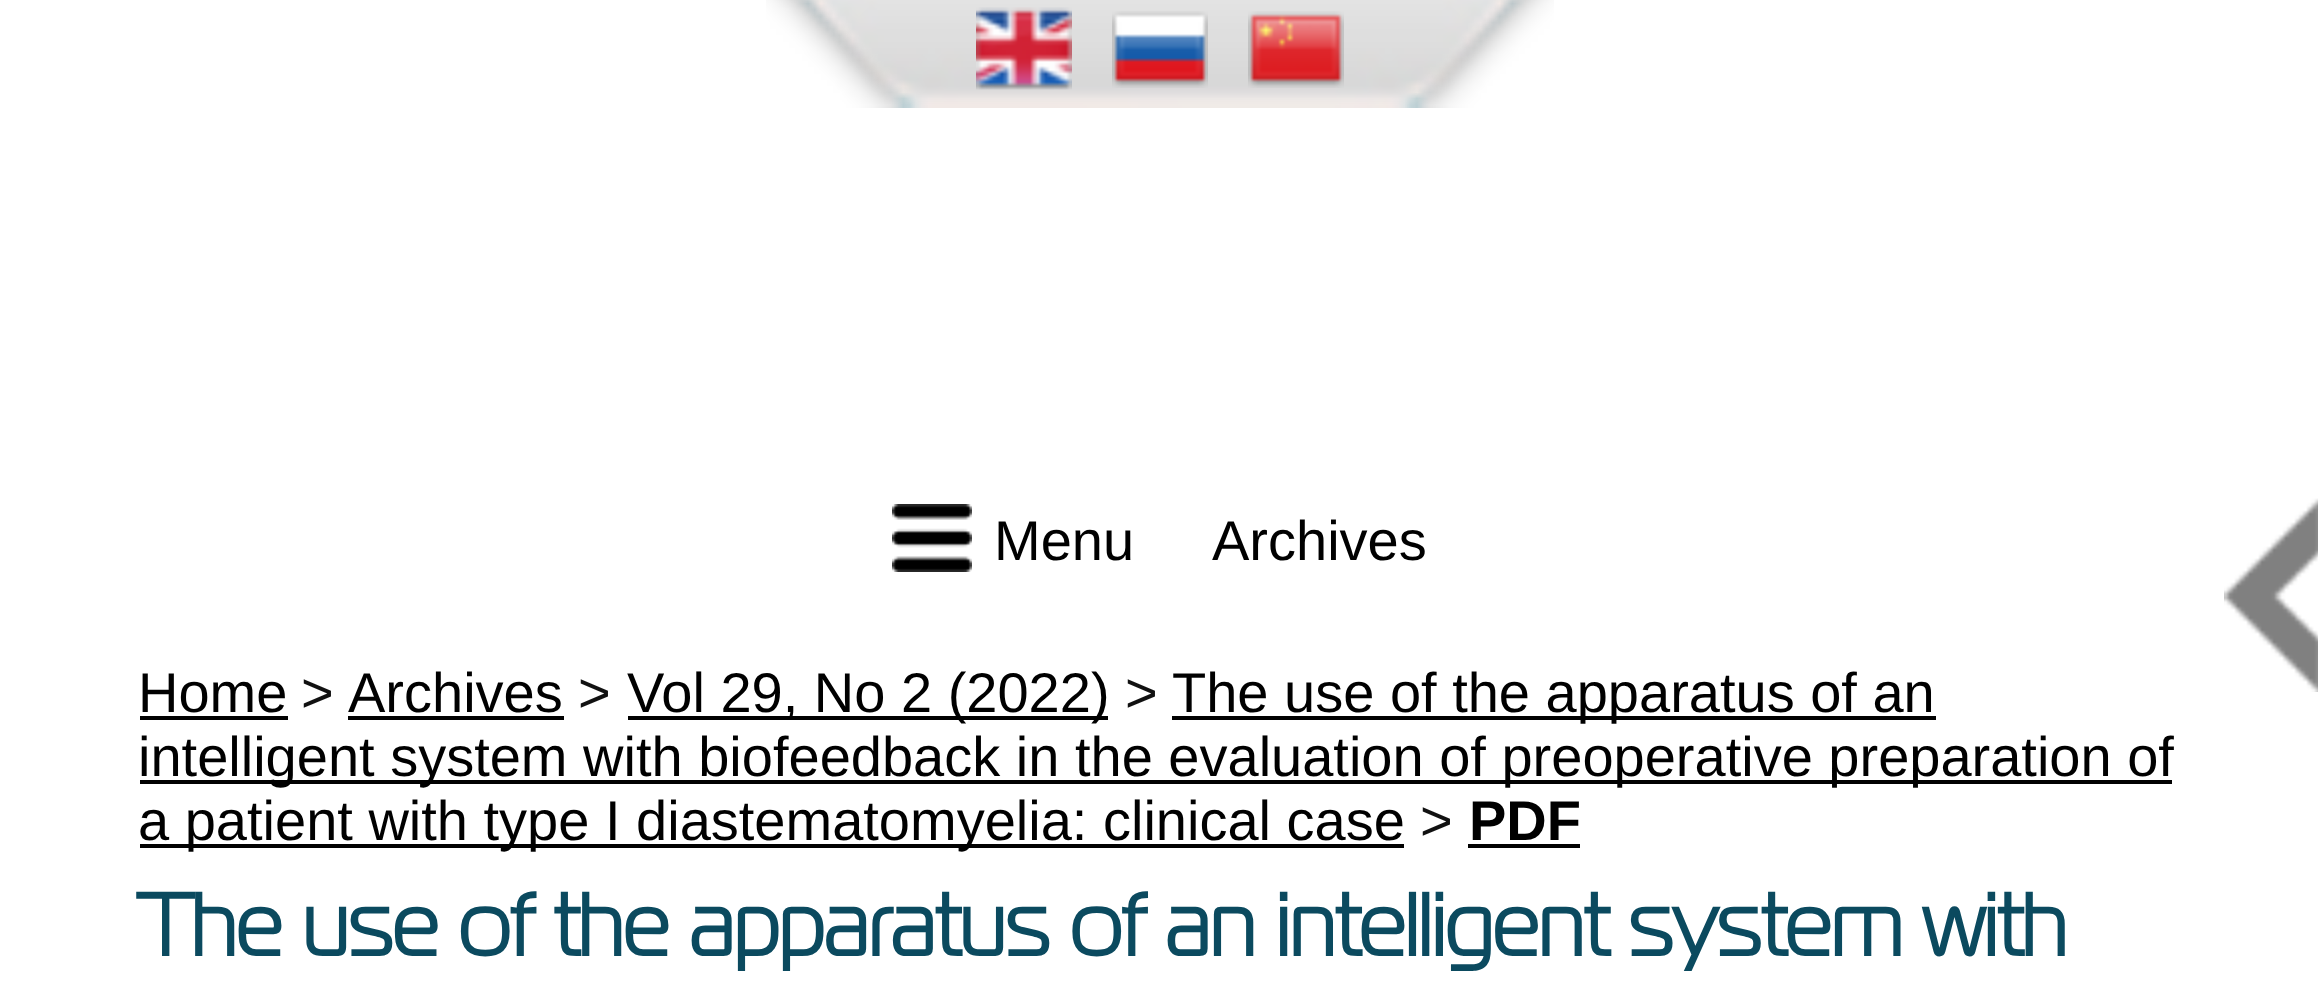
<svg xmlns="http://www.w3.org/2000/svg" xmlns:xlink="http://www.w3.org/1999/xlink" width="2318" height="994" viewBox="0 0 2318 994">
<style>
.cls-1{font:56px Liberation Sans;fill:#000000}
.cls-2{font:56px Liberation Sans;fill:#111111}
.cls-3{font:bold 56px Liberation Sans;fill:#000000}
.cls-4{font:bold 88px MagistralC;fill:#0b4a5f}
</style>
<rect width="100%" height="100%" fill="#ffffff"/>
<image xlink:href="image0.png" x="766" y="0" width="788" height="108"/>
<image xlink:href="image1.png" x="976" y="7" width="96" height="83"/>
<image xlink:href="image2.png" x="1112" y="11" width="96" height="77"/>
<image xlink:href="image3.png" x="1248" y="11" width="96" height="77"/>
<image xlink:href="image4.png" x="892" y="504" width="80" height="68"/>
<image xlink:href="image5.png" x="2224" y="498" width="94" height="194"/>
<rect fill="#010101" x="140" y="716" width="148" height="4"/>
<rect fill="#010101" x="348" y="716" width="216" height="4"/>
<rect fill="#010101" x="628" y="716" width="480" height="4"/>
<rect fill="#010101" x="1172" y="716" width="764" height="4"/>
<rect fill="#010101" x="140" y="780" width="2032" height="4"/>
<rect fill="#010101" x="140" y="844" width="1264" height="4"/>
<rect fill="#010101" x="1468" y="844" width="112" height="4"/>
<text class="cls-1" x="994" y="560">Menu</text>
<text class="cls-1" x="1212" y="560">Archives</text>
<text class="cls-1" x="138" y="712">Home</text>
<text class="cls-2" x="301" y="712">&gt;</text>
<text class="cls-1" x="348" y="712">Archives</text>
<text class="cls-2" x="578" y="712">&gt;</text>
<text class="cls-1" x="627" y="712">Vol 29, No 2 (2022)</text>
<text class="cls-2" x="1125" y="712">&gt;</text>
<text class="cls-1" x="1172" y="712">The use of the apparatus of an</text>
<text class="cls-1"><tspan x="138" y="776">intelligent system with biofeedback in the evaluation of preoperative preparation of</tspan><tspan x="138" y="840">a patient with type I diastematomyelia: clinical case</tspan></text>
<text class="cls-2" x="1420" y="840">&gt;</text>
<text class="cls-3" x="1469" y="840">PDF</text>
<text class="cls-4" x="138" y="956">The use of the apparatus of an intelligent system with</text>
</svg>
